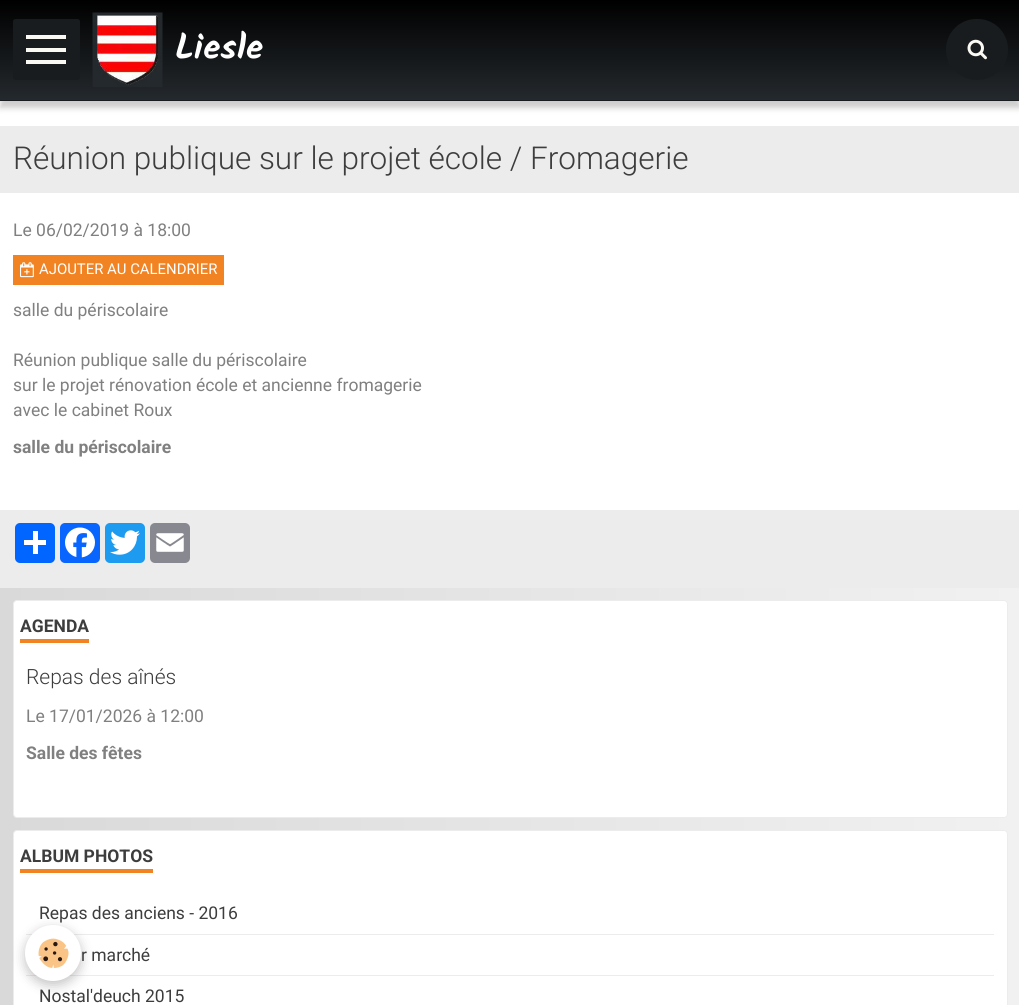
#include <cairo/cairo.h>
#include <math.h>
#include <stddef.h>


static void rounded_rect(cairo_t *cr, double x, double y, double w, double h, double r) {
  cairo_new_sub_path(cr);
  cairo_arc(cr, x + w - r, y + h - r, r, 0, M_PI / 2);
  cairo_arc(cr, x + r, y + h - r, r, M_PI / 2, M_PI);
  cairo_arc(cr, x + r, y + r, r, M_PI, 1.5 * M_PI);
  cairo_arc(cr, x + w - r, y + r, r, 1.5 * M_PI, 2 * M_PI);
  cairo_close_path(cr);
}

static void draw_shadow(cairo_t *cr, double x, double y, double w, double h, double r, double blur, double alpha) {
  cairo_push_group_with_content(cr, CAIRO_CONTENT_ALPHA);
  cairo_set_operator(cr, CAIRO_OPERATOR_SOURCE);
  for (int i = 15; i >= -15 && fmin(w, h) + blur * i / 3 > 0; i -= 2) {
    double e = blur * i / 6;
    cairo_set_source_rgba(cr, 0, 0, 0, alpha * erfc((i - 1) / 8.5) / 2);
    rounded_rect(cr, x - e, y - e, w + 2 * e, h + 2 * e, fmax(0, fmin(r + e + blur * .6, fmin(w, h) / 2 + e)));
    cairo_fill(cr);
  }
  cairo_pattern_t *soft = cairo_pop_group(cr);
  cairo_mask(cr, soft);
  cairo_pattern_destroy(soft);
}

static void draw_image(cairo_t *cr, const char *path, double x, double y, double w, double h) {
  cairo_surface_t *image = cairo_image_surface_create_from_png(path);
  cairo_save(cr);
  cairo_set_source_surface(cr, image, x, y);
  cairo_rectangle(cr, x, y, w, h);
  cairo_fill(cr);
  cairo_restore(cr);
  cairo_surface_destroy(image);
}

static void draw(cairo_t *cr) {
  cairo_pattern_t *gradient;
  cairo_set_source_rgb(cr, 1, 1, 1);
  cairo_paint(cr);
  cairo_set_source_rgb(cr, 0, 0, 0);
  draw_shadow(cr, 0, 6, 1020, 102, 0, 3, 0.2);
  cairo_set_source_rgb(cr, 25 / 255.0, 28 / 255.0, 31 / 255.0);
  cairo_rectangle(cr, 0, 100, 1019, 1);
  cairo_fill(cr);
  gradient = cairo_pattern_create_linear(510, 0, 510, 100);
  cairo_pattern_add_color_stop_rgba(gradient, 0, 0, 0, 0, 1);
  cairo_pattern_add_color_stop_rgba(gradient, 1, 36 / 255.0, 41 / 255.0, 45 / 255.0, 1);
  cairo_set_source(cr, gradient);
  cairo_pattern_destroy(gradient);
  cairo_rectangle(cr, 0, 0, 1019, 100);
  cairo_fill(cr);
  cairo_set_source_rgb(cr, 25 / 255.0, 28 / 255.0, 31 / 255.0);
  rounded_rect(cr, 13, 19, 67, 61, 2.5);
  cairo_fill(cr);
  cairo_set_source_rgb(cr, 250 / 255.0, 249 / 255.0, 243 / 255.0);
  cairo_rectangle(cr, 26, 48, 40, 4);
  cairo_fill(cr);
  cairo_rectangle(cr, 26, 35, 40, 4);
  cairo_fill(cr);
  cairo_rectangle(cr, 26, 60, 40, 4);
  cairo_fill(cr);
  draw_image(cr, "images/1.png", 92, 12, 71, 75);
  cairo_set_source_rgb(cr, 25 / 255.0, 28 / 255.0, 31 / 255.0);
  rounded_rect(cr, 946, 19, 62, 61, 30.5);
  cairo_fill(cr);
  draw_image(cr, "images/2.png", 967, 39, 20, 21);
  cairo_set_source_rgb(cr, 236 / 255.0, 236 / 255.0, 236 / 255.0);
  cairo_rectangle(cr, 0, 126, 1019, 67);
  cairo_fill(cr);
  cairo_set_source_rgb(cr, 242 / 255.0, 131 / 255.0, 34 / 255.0);
  cairo_rectangle(cr, 13, 255, 211, 30);
  cairo_fill(cr);
  draw_image(cr, "images/3.png", 20, 262, 14, 16);
  cairo_set_source_rgb(cr, 236 / 255.0, 236 / 255.0, 236 / 255.0);
  cairo_rectangle(cr, 0, 510, 1019, 78);
  cairo_fill(cr);
  cairo_set_source_rgb(cr, 1 / 255.0, 102 / 255.0, 1);
  rounded_rect(cr, 15, 523, 40, 40, 5);
  cairo_fill(cr);
  cairo_set_source_rgb(cr, 1, 1, 1);
  cairo_rectangle(cr, 33, 531, 5, 23);
  cairo_fill(cr);
  cairo_rectangle(cr, 24, 540, 22, 5);
  cairo_fill(cr);
  cairo_set_source_rgb(cr, 8 / 255.0, 102 / 255.0, 1);
  rounded_rect(cr, 60, 523, 40, 40, 5);
  cairo_fill(cr);
  draw_image(cr, "images/4.png", 65, 527, 30, 31);
  cairo_set_source_rgb(cr, 29 / 255.0, 155 / 255.0, 240 / 255.0);
  rounded_rect(cr, 105, 523, 40, 40, 5);
  cairo_fill(cr);
  draw_image(cr, "images/5.png", 110, 530, 30, 25);
  cairo_set_source_rgb(cr, 136 / 255.0, 137 / 255.0, 144 / 255.0);
  rounded_rect(cr, 150, 523, 40, 40, 5);
  cairo_fill(cr);
  draw_image(cr, "images/6.png", 156, 533, 28, 19);
  gradient = cairo_pattern_create_linear(0, 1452, 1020, 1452);
  cairo_pattern_add_color_stop_rgba(gradient, 0, 217 / 255.0, 217 / 255.0, 217 / 255.0, 1);
  cairo_pattern_add_color_stop_rgba(gradient, 1, 241 / 255.0, 241 / 255.0, 241 / 255.0, 1);
  cairo_set_source(cr, gradient);
  cairo_pattern_destroy(gradient);
  cairo_rectangle(cr, 0, 588, 1019, 417);
  cairo_fill(cr);
  cairo_set_source_rgb(cr, 1, 1, 1);
  rounded_rect(cr, 13.5, 600.5, 994, 217, 3.5);
  cairo_fill_preserve(cr);
  cairo_set_source_rgb(cr, 236 / 255.0, 236 / 255.0, 236 / 255.0);
  cairo_set_line_width(cr, 1);
  cairo_stroke(cr);
  cairo_set_source_rgb(cr, 242 / 255.0, 131 / 255.0, 34 / 255.0);
  cairo_rectangle(cr, 20, 639, 69, 4);
  cairo_fill(cr);
  cairo_set_source_rgb(cr, 1, 1, 1);
  rounded_rect(cr, 13.5, 830.5, 994, 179, 3.5);
  cairo_fill_preserve(cr);
  cairo_set_source_rgb(cr, 236 / 255.0, 236 / 255.0, 236 / 255.0);
  cairo_stroke(cr);
  cairo_set_source_rgb(cr, 242 / 255.0, 131 / 255.0, 34 / 255.0);
  cairo_rectangle(cr, 20, 869, 133, 4);
  cairo_fill(cr);
  cairo_set_source_rgb(cr, 236 / 255.0, 236 / 255.0, 236 / 255.0);
  cairo_rectangle(cr, 26, 934, 968, 1);
  cairo_fill(cr);
  cairo_rectangle(cr, 26, 975, 968, 1);
  cairo_fill(cr);
  cairo_set_source_rgb(cr, 0, 0, 0);
  draw_shadow(cr, 25, 929, 56, 56, 28, 6, 0.24);
  cairo_set_source_rgb(cr, 1, 1, 1);
  cairo_arc(cr, 53, 953, 28, 0, 2 * M_PI);
  cairo_fill(cr);
  draw_image(cr, "images/7.png", 38, 938, 31, 30);
  cairo_select_font_face(cr, "Kalam", CAIRO_FONT_SLANT_NORMAL, CAIRO_FONT_WEIGHT_BOLD);
  cairo_set_font_size(cr, 35);
  cairo_move_to(cr, 175, 59);
  cairo_show_text(cr, "Liesle");
  cairo_select_font_face(cr, "Roboto Light", CAIRO_FONT_SLANT_NORMAL, CAIRO_FONT_WEIGHT_NORMAL);
  cairo_set_font_size(cr, 31.5);
  cairo_set_source_rgb(cr, 61 / 255.0, 61 / 255.0, 61 / 255.0);
  cairo_move_to(cr, 13, 169);
  cairo_show_text(cr, "Réunion publique sur le projet école / Fromagerie");
  cairo_select_font_face(cr, "Roboto", CAIRO_FONT_SLANT_NORMAL, CAIRO_FONT_WEIGHT_NORMAL);
  cairo_set_font_size(cr, 17.5);
  cairo_set_source_rgb(cr, 128 / 255.0, 128 / 255.0, 128 / 255.0);
  cairo_move_to(cr, 13, 236);
  cairo_show_text(cr, "Le 06/02/2019 à 18:00");
  cairo_set_font_size(cr, 14.9);
  cairo_set_source_rgb(cr, 1, 1, 1);
  cairo_move_to(cr, 39, 274);
  cairo_show_text(cr, "AJOUTER AU CALENDRIER");
  cairo_set_font_size(cr, 17.5);
  cairo_set_source_rgb(cr, 128 / 255.0, 128 / 255.0, 128 / 255.0);
  cairo_move_to(cr, 13, 316);
  cairo_show_text(cr, "salle du périscolaire");
  cairo_move_to(cr, 13, 366);
  cairo_show_text(cr, "Réunion publique salle du périscolaire");
  cairo_move_to(cr, 13, 391);
  cairo_show_text(cr, "sur le projet rénovation école et ancienne fromagerie");
  cairo_move_to(cr, 13, 416);
  cairo_show_text(cr, "avec le cabinet Roux");
  cairo_select_font_face(cr, "Roboto", CAIRO_FONT_SLANT_NORMAL, CAIRO_FONT_WEIGHT_BOLD);
  cairo_move_to(cr, 13, 453);
  cairo_show_text(cr, "salle du périscolaire");
  cairo_set_source_rgb(cr, 61 / 255.0, 61 / 255.0, 61 / 255.0);
  cairo_move_to(cr, 20, 632);
  cairo_show_text(cr, "AGENDA");
  cairo_select_font_face(cr, "Roboto Light", CAIRO_FONT_SLANT_NORMAL, CAIRO_FONT_WEIGHT_NORMAL);
  cairo_set_font_size(cr, 21);
  cairo_move_to(cr, 26, 684);
  cairo_show_text(cr, "Repas des aînés");
  cairo_select_font_face(cr, "Roboto", CAIRO_FONT_SLANT_NORMAL, CAIRO_FONT_WEIGHT_NORMAL);
  cairo_set_font_size(cr, 17.5);
  cairo_set_source_rgb(cr, 128 / 255.0, 128 / 255.0, 128 / 255.0);
  cairo_move_to(cr, 26, 722);
  cairo_show_text(cr, "Le 17/01/2026 à 12:00");
  cairo_select_font_face(cr, "Roboto", CAIRO_FONT_SLANT_NORMAL, CAIRO_FONT_WEIGHT_BOLD);
  cairo_move_to(cr, 26, 759);
  cairo_show_text(cr, "Salle des fêtes");
  cairo_set_source_rgb(cr, 61 / 255.0, 61 / 255.0, 61 / 255.0);
  cairo_move_to(cr, 20, 862);
  cairo_show_text(cr, "ALBUM PHOTOS");
  cairo_select_font_face(cr, "Roboto", CAIRO_FONT_SLANT_NORMAL, CAIRO_FONT_WEIGHT_NORMAL);
  cairo_move_to(cr, 39, 919);
  cairo_show_text(cr, "Repas des anciens - 2016");
  cairo_move_to(cr, 81, 961);
  cairo_show_text(cr, "r marché");
  cairo_move_to(cr, 39, 1002);
  cairo_show_text(cr, "Nostal'deuch 2015");
}

int main(void) {
  cairo_surface_t *surface = cairo_image_surface_create(CAIRO_FORMAT_RGB24, 1019, 1005);
  cairo_t *cr = cairo_create(surface);
  cairo_font_options_t *options = cairo_font_options_create();
  cairo_font_options_set_hint_metrics(options, CAIRO_HINT_METRICS_OFF);
  cairo_font_options_set_hint_style(options, CAIRO_HINT_STYLE_NONE);
  cairo_set_font_options(cr, options);
  cairo_set_miter_limit(cr, 4);
  draw(cr);
  cairo_surface_write_to_png(surface, "out.png");
  cairo_font_options_destroy(options);
  cairo_destroy(cr);
  cairo_surface_destroy(surface);
  return 0;
}
